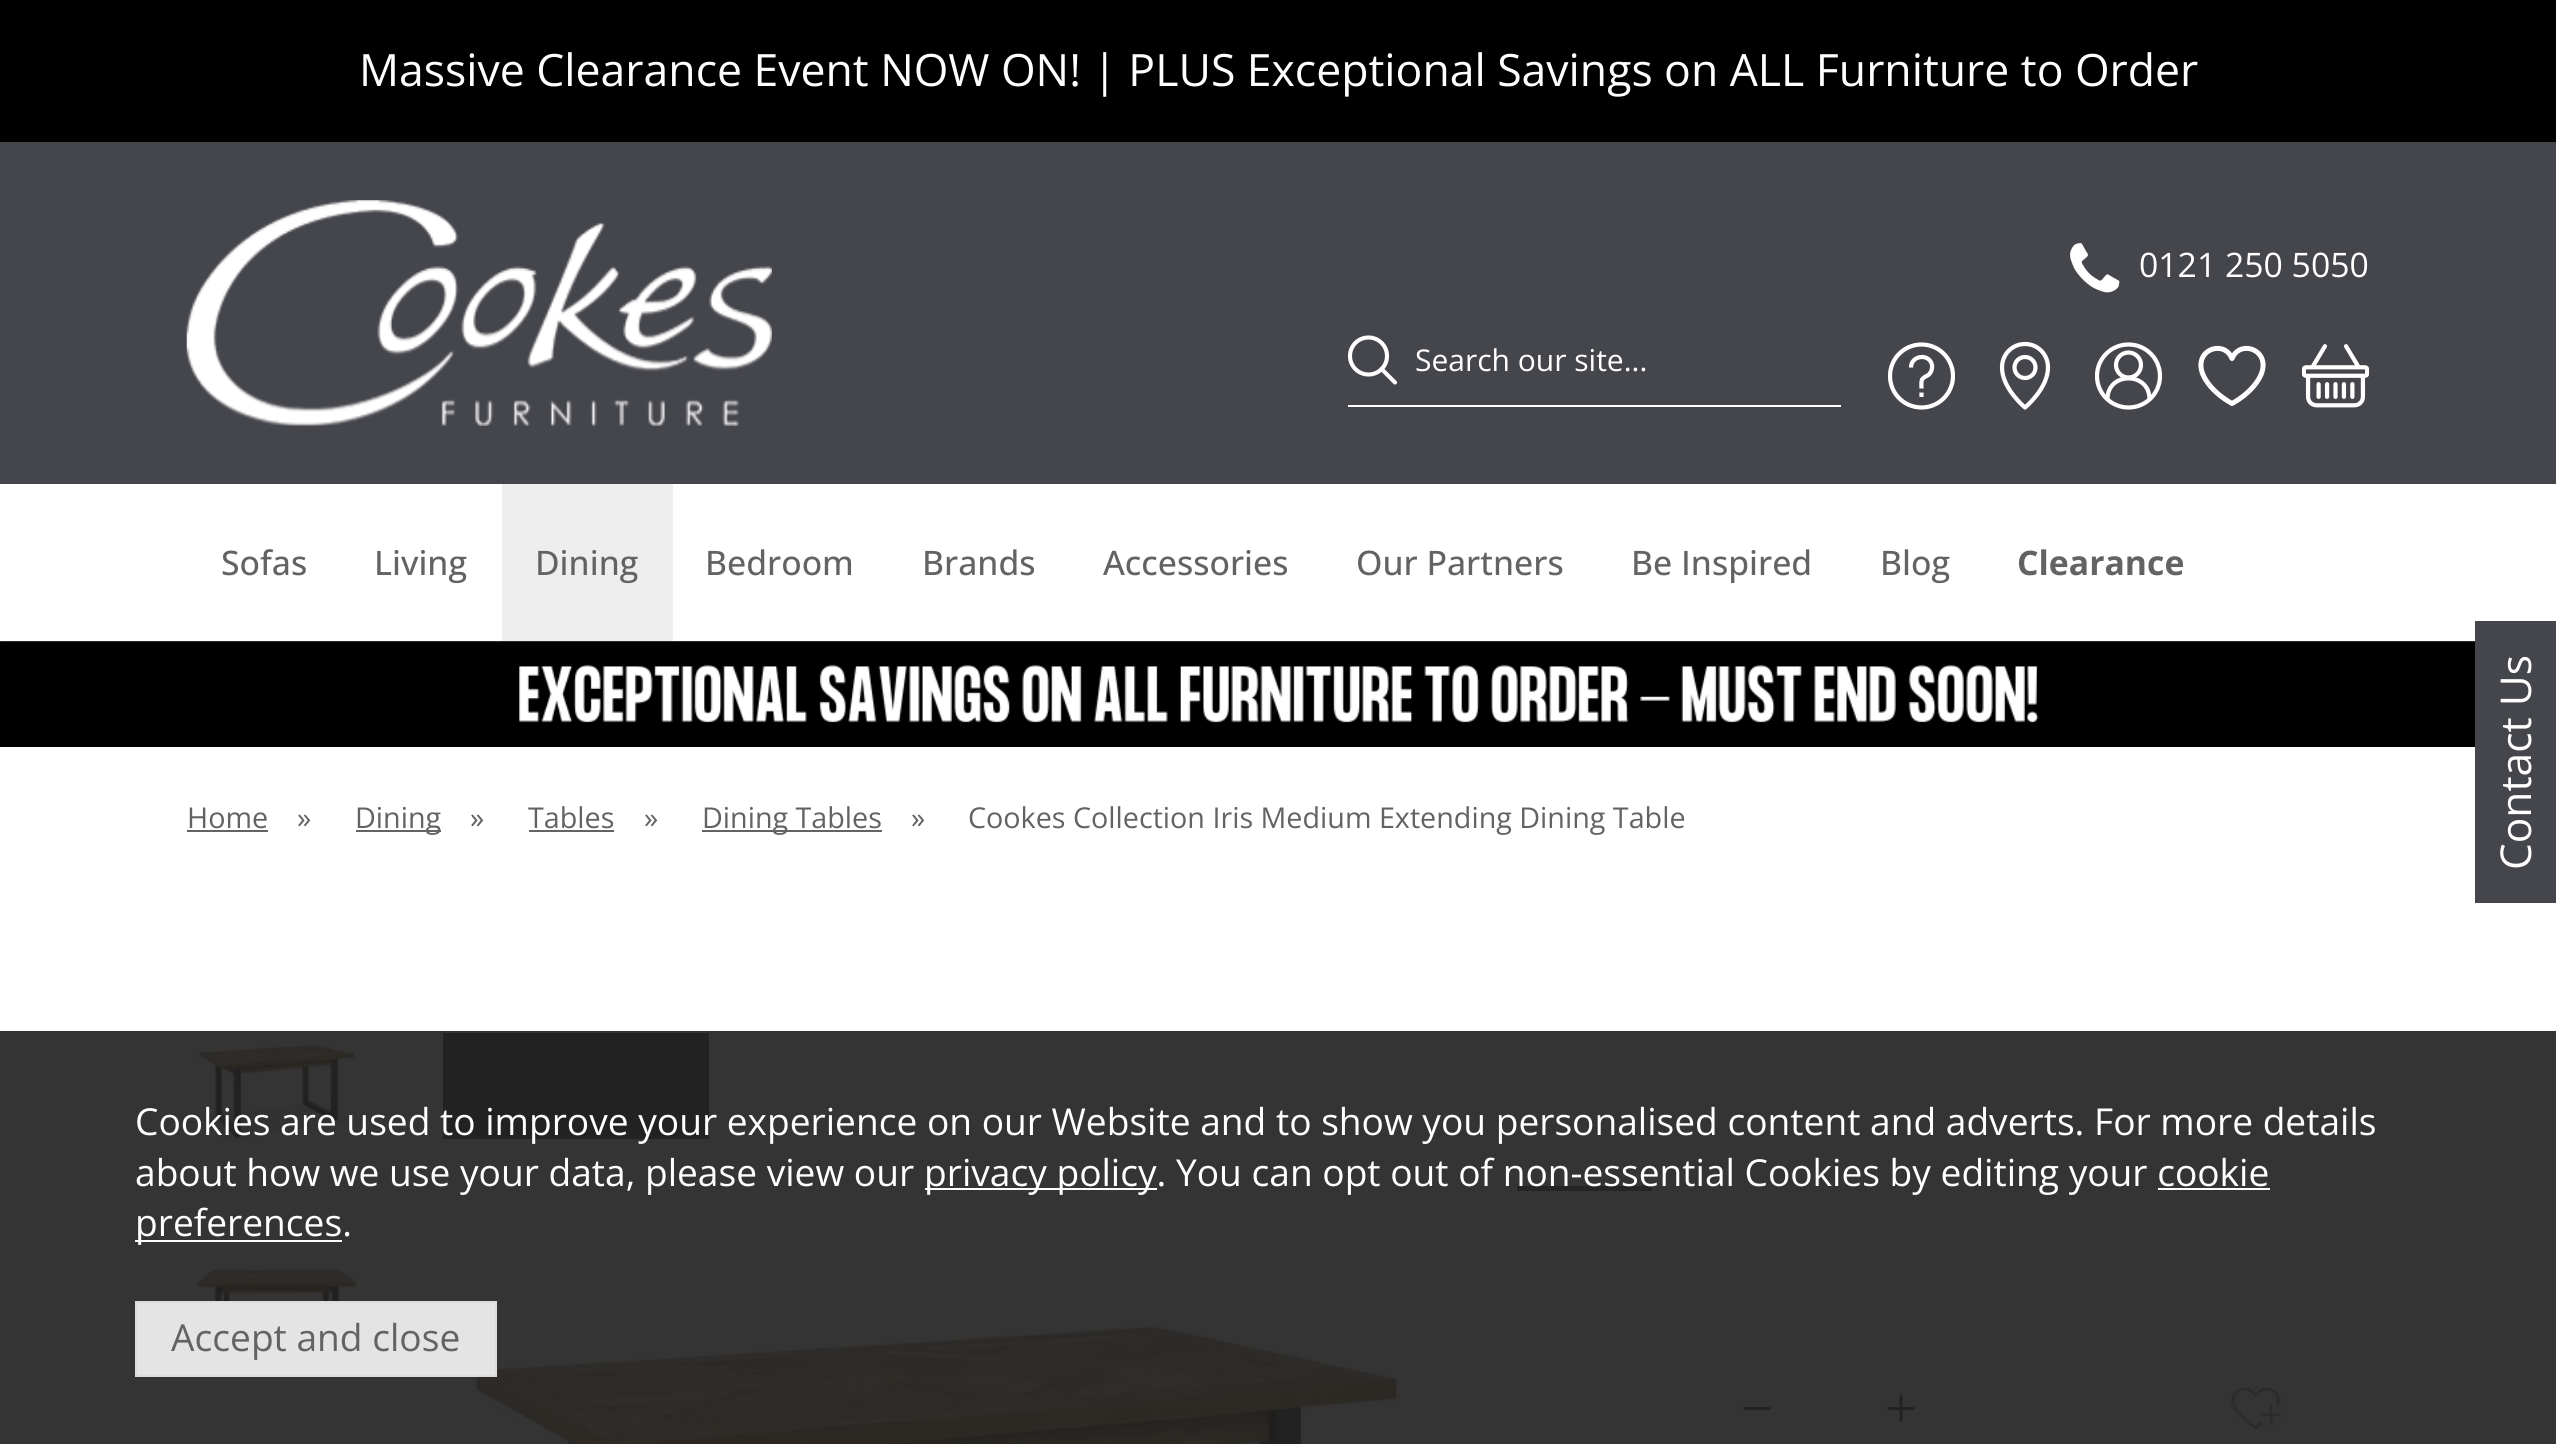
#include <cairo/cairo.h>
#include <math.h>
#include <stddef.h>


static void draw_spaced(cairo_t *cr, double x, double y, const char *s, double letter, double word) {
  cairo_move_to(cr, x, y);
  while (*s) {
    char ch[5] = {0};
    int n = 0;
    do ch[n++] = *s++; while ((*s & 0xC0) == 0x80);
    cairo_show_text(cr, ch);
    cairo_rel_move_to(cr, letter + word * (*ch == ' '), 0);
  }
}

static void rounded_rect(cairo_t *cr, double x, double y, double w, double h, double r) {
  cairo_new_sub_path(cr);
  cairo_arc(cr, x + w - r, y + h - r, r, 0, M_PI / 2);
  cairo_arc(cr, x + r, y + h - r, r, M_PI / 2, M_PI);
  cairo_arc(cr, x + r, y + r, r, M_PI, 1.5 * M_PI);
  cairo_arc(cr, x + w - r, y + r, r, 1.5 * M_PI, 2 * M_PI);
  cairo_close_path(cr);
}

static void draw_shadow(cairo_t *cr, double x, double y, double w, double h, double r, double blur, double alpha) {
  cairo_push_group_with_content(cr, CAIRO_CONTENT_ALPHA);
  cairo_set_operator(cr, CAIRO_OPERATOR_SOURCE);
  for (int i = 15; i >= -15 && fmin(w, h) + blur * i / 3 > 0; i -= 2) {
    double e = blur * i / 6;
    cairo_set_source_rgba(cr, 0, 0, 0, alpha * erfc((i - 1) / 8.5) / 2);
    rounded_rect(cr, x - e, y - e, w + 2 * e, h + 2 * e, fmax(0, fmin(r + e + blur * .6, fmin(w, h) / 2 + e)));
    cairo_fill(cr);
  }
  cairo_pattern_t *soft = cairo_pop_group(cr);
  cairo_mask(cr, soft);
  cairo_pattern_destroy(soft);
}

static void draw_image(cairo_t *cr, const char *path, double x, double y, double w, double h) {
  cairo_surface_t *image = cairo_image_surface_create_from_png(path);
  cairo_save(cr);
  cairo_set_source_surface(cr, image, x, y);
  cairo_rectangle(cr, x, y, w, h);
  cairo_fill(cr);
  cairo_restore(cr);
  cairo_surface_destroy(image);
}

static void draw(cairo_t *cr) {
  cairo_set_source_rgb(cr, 1, 1, 1);
  cairo_paint(cr);
  cairo_set_source_rgb(cr, 0, 0, 0);
  cairo_rectangle(cr, 0, 0, 2556, 142);
  cairo_fill(cr);
  cairo_set_source_rgb(cr, 69 / 255.0, 70 / 255.0, 76 / 255.0);
  cairo_rectangle(cr, 0, 142, 2556, 342);
  cairo_fill(cr);
  draw_image(cr, "images/1.png", 186, 200, 586, 226);
  draw_image(cr, "images/2.png", 2070, 243, 50, 50);
  cairo_save(cr);
  cairo_rectangle(cr, 1888, 342, 67, 68);
  cairo_clip(cr);
  cairo_arc(cr, 1921.5, 376, 31.5, 0, 2 * M_PI);
  cairo_set_source_rgb(cr, 1, 1, 1);
  cairo_set_line_width(cr, 4.2);
  cairo_stroke(cr);
  cairo_restore(cr);
  cairo_new_path(cr);
  cairo_move_to(cr, 1921.5, 392.5);
  cairo_line_to(cr, 1921.5, 397);
  cairo_move_to(cr, 1921.5, 388.5);
  cairo_curve_to(cr, 1921.5, 385.5, 1921, 382.5, 1922, 379.5);
  cairo_curve_to(cr, 1923.5, 377.5, 1925.5, 376.5, 1927.5, 375.5);
  cairo_curve_to(cr, 1931, 373.5, 1932.5, 369, 1932, 365);
  cairo_curve_to(cr, 1929.5, 353, 1911, 355, 1911, 367.5);
  cairo_set_source_rgb(cr, 1, 1, 1);
  cairo_set_line_width(cr, 4.2);
  cairo_set_line_join(cr, CAIRO_LINE_JOIN_ROUND);
  cairo_stroke(cr);
  cairo_new_path(cr);
  cairo_move_to(cr, 2048, 367.5);
  cairo_curve_to(cr, 2048, 354.5, 2038, 344, 2025, 344);
  cairo_curve_to(cr, 2012, 344, 2002, 354.5, 2002, 367.5);
  cairo_curve_to(cr, 2002, 388.5, 2025, 407.5, 2025, 407.5);
  cairo_curve_to(cr, 2025, 407.5, 2048, 388.5, 2048, 367.5);
  cairo_close_path(cr);
  cairo_set_line_cap(cr, CAIRO_LINE_CAP_ROUND);
  cairo_stroke(cr);
  cairo_arc(cr, 2025, 367.5, 10.5, 0, 2 * M_PI);
  cairo_set_line_cap(cr, CAIRO_LINE_CAP_BUTT);
  cairo_set_line_join(cr, CAIRO_LINE_JOIN_MITER);
  cairo_stroke(cr);
  cairo_save(cr);
  cairo_rectangle(cr, 2095, 342, 67, 68);
  cairo_clip(cr);
  cairo_arc(cr, 2128.5, 376, 31.5, 0, 2 * M_PI);
  cairo_stroke(cr);
  cairo_restore(cr);
  cairo_new_path(cr);
  cairo_move_to(cr, 2149.5, 399);
  cairo_curve_to(cr, 2149.5, 371.5, 2107.5, 371.5, 2107.5, 399);
  cairo_set_line_cap(cr, CAIRO_LINE_CAP_ROUND);
  cairo_set_line_join(cr, CAIRO_LINE_JOIN_ROUND);
  cairo_stroke(cr);
  cairo_arc(cr, 2128.5, 365, 12.5, 0, 2 * M_PI);
  cairo_set_line_cap(cr, CAIRO_LINE_CAP_BUTT);
  cairo_set_line_join(cr, CAIRO_LINE_JOIN_MITER);
  cairo_stroke(cr);
  cairo_new_path(cr);
  cairo_move_to(cr, 2232, 403.5);
  cairo_curve_to(cr, 2222, 398, 2211.5, 389.5, 2205.5, 379.5);
  cairo_curve_to(cr, 2188.5, 351.5, 2223.5, 337.5, 2232, 358.5);
  cairo_curve_to(cr, 2240.5, 337.5, 2275.5, 351.5, 2258.5, 379.5);
  cairo_curve_to(cr, 2252.5, 389.5, 2242, 398, 2232, 403.5);
  cairo_close_path(cr);
  cairo_set_line_width(cr, 5);
  cairo_set_line_cap(cr, CAIRO_LINE_CAP_ROUND);
  cairo_set_line_join(cr, CAIRO_LINE_JOIN_ROUND);
  cairo_stroke(cr);
  draw_image(cr, "images/3.png", 2302, 344, 67, 64);
  cairo_arc(cr, 1368.5, 356, 18.5, 0, 2 * M_PI);
  cairo_set_line_width(cr, 4.1);
  cairo_set_line_cap(cr, CAIRO_LINE_CAP_BUTT);
  cairo_set_line_join(cr, CAIRO_LINE_JOIN_MITER);
  cairo_stroke(cr);
  cairo_new_path(cr);
  cairo_move_to(cr, 1395, 382.5);
  cairo_line_to(cr, 1381.5, 369);
  cairo_set_line_cap(cr, CAIRO_LINE_CAP_ROUND);
  cairo_stroke(cr);
  cairo_rectangle(cr, 1348, 405, 493, 2);
  cairo_fill(cr);
  draw_image(cr, "images/4.png", 0, 641, 2475, 106);
  cairo_save(cr);
  cairo_set_fill_rule(cr, CAIRO_FILL_RULE_EVEN_ODD);
  cairo_new_path(cr);
  cairo_move_to(cr, 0, 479);
  cairo_line_to(cr, 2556, 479);
  cairo_line_to(cr, 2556, 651);
  cairo_line_to(cr, 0, 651);
  cairo_close_path(cr);
  cairo_move_to(cr, 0, 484);
  cairo_line_to(cr, 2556, 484);
  cairo_line_to(cr, 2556, 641);
  cairo_line_to(cr, 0, 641);
  cairo_close_path(cr);
  cairo_clip(cr);
  cairo_set_source_rgb(cr, 0, 0, 0);
  draw_shadow(cr, 0, 486, 2556, 158, 0, 2, 0.3);
  cairo_restore(cr);
  cairo_set_source_rgb(cr, 238 / 255.0, 238 / 255.0, 238 / 255.0);
  cairo_rectangle(cr, 502, 484, 171, 157);
  cairo_fill(cr);
  cairo_set_source_rgb(cr, 69 / 255.0, 70 / 255.0, 76 / 255.0);
  cairo_rectangle(cr, 2475, 621, 81, 282);
  cairo_fill(cr);
  cairo_set_source_rgb(cr, 99 / 255.0, 99 / 255.0, 99 / 255.0);
  cairo_rectangle(cr, 187, 830, 81, 2);
  cairo_fill(cr);
  cairo_rectangle(cr, 356, 830, 85, 2);
  cairo_fill(cr);
  cairo_rectangle(cr, 529, 830, 85, 2);
  cairo_fill(cr);
  cairo_rectangle(cr, 702, 830, 180, 2);
  cairo_fill(cr);
  draw_image(cr, "images/5.png", 198, 1040, 158, 102);
  draw_image(cr, "images/6.png", 190, 1264, 170, 37);
  cairo_set_source_rgb(cr, 69 / 255.0, 70 / 255.0, 76 / 255.0);
  cairo_rectangle(cr, 443, 1033, 266, 106);
  cairo_fill(cr);
  draw_image(cr, "images/7.png", 472, 1325, 926, 119);
  cairo_set_source_rgb(cr, 99 / 255.0, 99 / 255.0, 99 / 255.0);
  cairo_rectangle(cr, 1517, 1186, 135, 5);
  cairo_fill(cr);
  cairo_new_path(cr);
  cairo_move_to(cr, 1745, 1408.5);
  cairo_line_to(cr, 1769.5, 1408.5);
  cairo_set_source_rgb(cr, 58 / 255.0, 58 / 255.0, 58 / 255.0);
  cairo_set_line_width(cr, 2.7);
  cairo_set_line_join(cr, CAIRO_LINE_JOIN_ROUND);
  cairo_stroke(cr);
  cairo_new_path(cr);
  cairo_move_to(cr, 1901, 1396.5);
  cairo_line_to(cr, 1901, 1420.5);
  cairo_move_to(cr, 1889, 1408.5);
  cairo_line_to(cr, 1913.5, 1408.5);
  cairo_stroke(cr);
  draw_image(cr, "images/8.png", 2230, 1387, 53, 43);
  cairo_set_source_rgba(cr, 30 / 255.0, 30 / 255.0, 30 / 255.0, 0.9);
  cairo_rectangle(cr, 0, 1031, 2556, 413);
  cairo_fill(cr);
  cairo_set_source_rgb(cr, 1, 1, 1);
  cairo_rectangle(cr, 925, 1188, 232, 2);
  cairo_fill(cr);
  cairo_rectangle(cr, 2158, 1188, 112, 2);
  cairo_fill(cr);
  cairo_rectangle(cr, 135, 1240, 207, 2);
  cairo_fill(cr);
  cairo_set_source_rgb(cr, 228 / 255.0, 228 / 255.0, 228 / 255.0);
  cairo_rectangle(cr, 136, 1302, 360, 74);
  cairo_fill_preserve(cr);
  cairo_set_source_rgb(cr, 221 / 255.0, 221 / 255.0, 221 / 255.0);
  cairo_set_line_width(cr, 2);
  cairo_set_line_cap(cr, CAIRO_LINE_CAP_BUTT);
  cairo_set_line_join(cr, CAIRO_LINE_JOIN_MITER);
  cairo_stroke(cr);
  cairo_select_font_face(cr, "Open Sans", CAIRO_FONT_SLANT_NORMAL, CAIRO_FONT_WEIGHT_NORMAL);
  cairo_set_font_size(cr, 44.55);
  cairo_set_source_rgb(cr, 1, 1, 1);
  draw_spaced(cr, 359, 86, "Massive Clearance Event NOW ON! | PLUS Exceptional Savings on ALL Furniture to Order", 0, -0.1);
  cairo_set_font_size(cr, 33.75);
  cairo_move_to(cr, 2139, 277);
  cairo_show_text(cr, "0121 250 5050");
  cairo_set_font_size(cr, 30);
  cairo_move_to(cr, 1415, 371);
  cairo_show_text(cr, "Search our site...");
  cairo_select_font_face(cr, "Open Sans Medium", CAIRO_FONT_SLANT_NORMAL, CAIRO_FONT_WEIGHT_NORMAL);
  cairo_set_font_size(cr, 33.75);
  cairo_set_source_rgb(cr, 99 / 255.0, 99 / 255.0, 99 / 255.0);
  cairo_move_to(cr, 221, 575);
  cairo_show_text(cr, "Sofas");
  cairo_move_to(cr, 374, 575);
  cairo_show_text(cr, "Living");
  cairo_move_to(cr, 535, 575);
  cairo_show_text(cr, "Dining");
  cairo_move_to(cr, 705, 575);
  cairo_show_text(cr, "Bedroom");
  cairo_move_to(cr, 922, 575);
  cairo_show_text(cr, "Brands");
  cairo_move_to(cr, 1103, 575);
  cairo_show_text(cr, "Accessories");
  cairo_move_to(cr, 1356, 575);
  cairo_show_text(cr, "Our Partners");
  cairo_move_to(cr, 1631, 575);
  cairo_show_text(cr, "Be Inspired");
  cairo_move_to(cr, 1880, 575);
  cairo_show_text(cr, "Blog");
  cairo_select_font_face(cr, "Open Sans", CAIRO_FONT_SLANT_NORMAL, CAIRO_FONT_WEIGHT_BOLD);
  cairo_move_to(cr, 2017, 575);
  cairo_show_text(cr, "Clearance");
  cairo_select_font_face(cr, "Open Sans", CAIRO_FONT_SLANT_NORMAL, CAIRO_FONT_WEIGHT_NORMAL);
  cairo_set_font_size(cr, 42.5);
  cairo_set_source_rgb(cr, 1, 1, 1);
  cairo_save(cr);
  cairo_translate(cr, 2531, 870);
  cairo_rotate(cr, -90 * M_PI / 180);
  cairo_move_to(cr, 0, 0);
  cairo_show_text(cr, "Contact Us");
  cairo_restore(cr);
  cairo_set_font_size(cr, 28.7);
  cairo_set_source_rgb(cr, 99 / 255.0, 99 / 255.0, 99 / 255.0);
  cairo_move_to(cr, 187, 828);
  cairo_show_text(cr, "Home");
  cairo_move_to(cr, 297, 828);
  cairo_show_text(cr, "»");
  cairo_move_to(cr, 355, 828);
  cairo_show_text(cr, "Dining");
  cairo_move_to(cr, 470, 828);
  cairo_show_text(cr, "»");
  cairo_move_to(cr, 528, 828);
  cairo_show_text(cr, "Tables");
  cairo_move_to(cr, 644, 828);
  cairo_show_text(cr, "»");
  cairo_move_to(cr, 702, 828);
  cairo_show_text(cr, "Dining Tables");
  cairo_move_to(cr, 911, 828);
  cairo_show_text(cr, "»");
  cairo_move_to(cr, 968, 828);
  cairo_show_text(cr, "Cookes Collection Iris Medium Extending Dining Table");
  cairo_set_font_size(cr, 37.12);
  cairo_set_source_rgb(cr, 1, 1, 1);
  cairo_move_to(cr, 135, 1135);
  cairo_show_text(cr, "Cookies are used to improve your experience on our Website and to show you personalised content and adverts. For more details");
  cairo_move_to(cr, 135, 1186);
  cairo_show_text(cr, "about how we use your data, please view our");
  cairo_move_to(cr, 924, 1186);
  cairo_show_text(cr, "privacy policy. You can opt out of non-essential Cookies by editing your cookie");
  cairo_move_to(cr, 135, 1236);
  cairo_show_text(cr, "preferences.");
  cairo_set_source_rgb(cr, 99 / 255.0, 99 / 255.0, 99 / 255.0);
  cairo_move_to(cr, 171, 1351);
  cairo_show_text(cr, "Accept and close");
}

int main(void) {
  cairo_surface_t *surface = cairo_image_surface_create(CAIRO_FORMAT_RGB24, 2556, 1444);
  cairo_t *cr = cairo_create(surface);
  cairo_font_options_t *options = cairo_font_options_create();
  cairo_font_options_set_hint_metrics(options, CAIRO_HINT_METRICS_OFF);
  cairo_font_options_set_hint_style(options, CAIRO_HINT_STYLE_NONE);
  cairo_set_font_options(cr, options);
  cairo_set_miter_limit(cr, 4);
  draw(cr);
  cairo_surface_write_to_png(surface, "out.png");
  cairo_font_options_destroy(options);
  cairo_destroy(cr);
  cairo_surface_destroy(surface);
  return 0;
}
